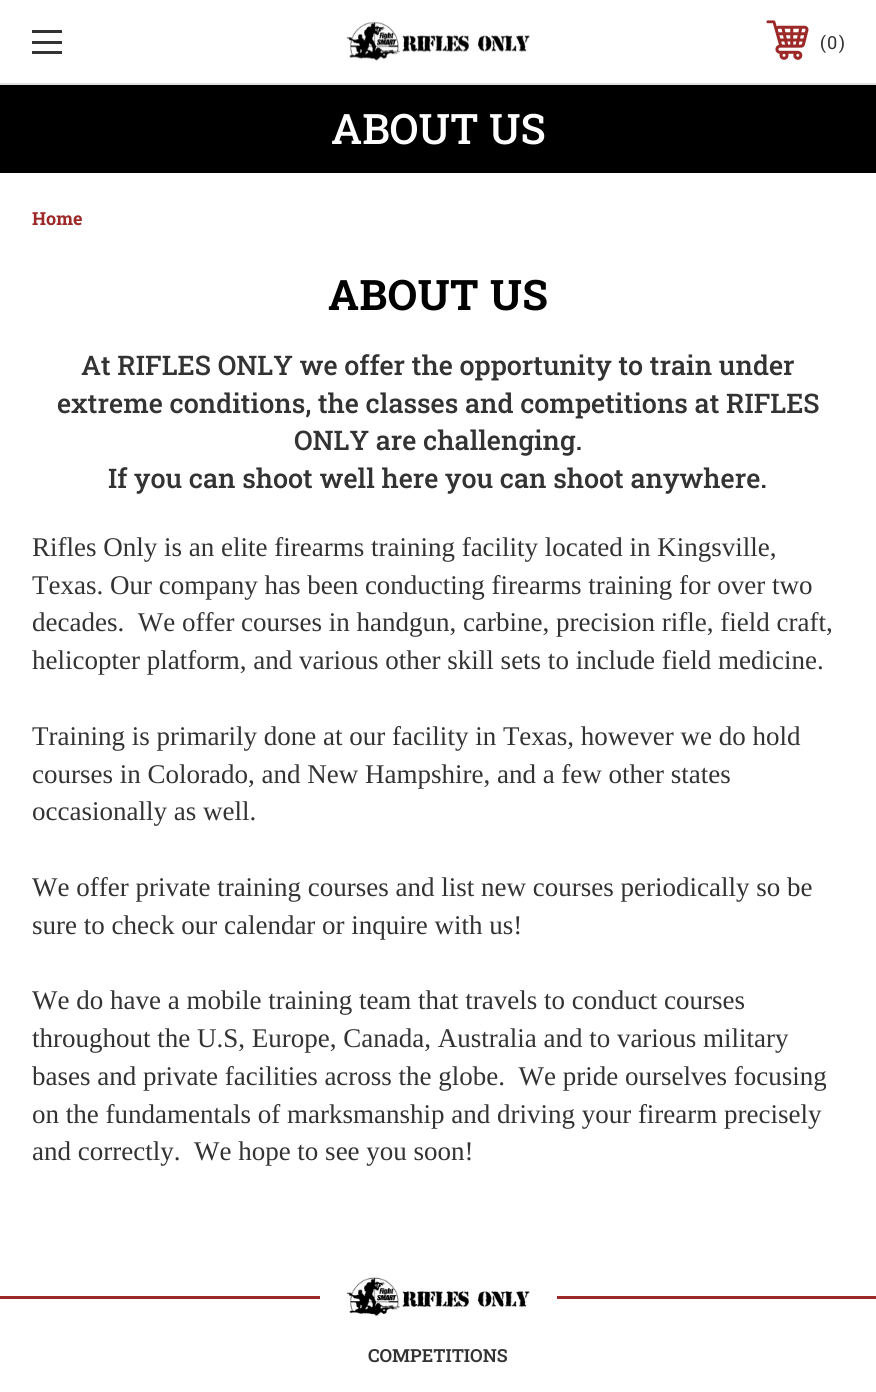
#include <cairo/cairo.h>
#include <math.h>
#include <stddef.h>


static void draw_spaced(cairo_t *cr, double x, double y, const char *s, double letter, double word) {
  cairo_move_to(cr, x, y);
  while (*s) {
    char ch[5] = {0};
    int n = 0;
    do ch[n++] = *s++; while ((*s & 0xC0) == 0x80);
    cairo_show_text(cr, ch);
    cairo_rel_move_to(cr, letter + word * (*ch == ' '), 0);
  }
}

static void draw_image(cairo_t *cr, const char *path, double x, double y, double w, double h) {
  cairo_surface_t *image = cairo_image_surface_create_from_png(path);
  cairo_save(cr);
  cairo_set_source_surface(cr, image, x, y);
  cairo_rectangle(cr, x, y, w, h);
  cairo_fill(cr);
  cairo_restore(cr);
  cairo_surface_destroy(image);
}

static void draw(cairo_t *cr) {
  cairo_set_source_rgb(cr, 1, 1, 1);
  cairo_paint(cr);
  cairo_set_source_rgb(cr, 225 / 255.0, 225 / 255.0, 225 / 255.0);
  cairo_rectangle(cr, 0, 83, 876, 2);
  cairo_fill(cr);
  cairo_set_source_rgb(cr, 51 / 255.0, 51 / 255.0, 51 / 255.0);
  cairo_rectangle(cr, 32, 41, 30, 3);
  cairo_fill(cr);
  cairo_rectangle(cr, 32, 30, 30, 3);
  cairo_fill(cr);
  cairo_rectangle(cr, 32, 51, 30, 3);
  cairo_fill(cr);
  draw_image(cr, "images/1.png", 346, 21, 184, 40);
  draw_image(cr, "images/2.png", 766, 20, 43, 40);
  cairo_set_source_rgb(cr, 0, 0, 0);
  cairo_rectangle(cr, 0, 85, 876, 88);
  cairo_fill(cr);
  cairo_set_source_rgb(cr, 156 / 255.0, 40 / 255.0, 40 / 255.0);
  cairo_rectangle(cr, 0, 1296, 876, 3);
  cairo_fill(cr);
  cairo_set_source_rgb(cr, 1, 1, 1);
  cairo_rectangle(cr, 320, 1296, 237, 3);
  cairo_fill(cr);
  draw_image(cr, "images/3.png", 346, 1277, 184, 40);
  cairo_select_font_face(cr, "Roboto Slab", CAIRO_FONT_SLANT_NORMAL, CAIRO_FONT_WEIGHT_NORMAL);
  cairo_set_font_size(cr, 18);
  cairo_set_source_rgb(cr, 51 / 255.0, 51 / 255.0, 51 / 255.0);
  cairo_move_to(cr, 820, 49);
  cairo_show_text(cr, "(");
  cairo_move_to(cr, 827, 49);
  cairo_show_text(cr, "0");
  cairo_move_to(cr, 839, 49);
  cairo_show_text(cr, ")");
  cairo_select_font_face(cr, "Roboto Slab Medium", CAIRO_FONT_SLANT_NORMAL, CAIRO_FONT_WEIGHT_NORMAL);
  cairo_set_font_size(cr, 42);
  cairo_set_source_rgb(cr, 1, 1, 1);
  cairo_move_to(cr, 331, 144);
  cairo_show_text(cr, "ABOUT US");
  cairo_select_font_face(cr, "Roboto Slab", CAIRO_FONT_SLANT_NORMAL, CAIRO_FONT_WEIGHT_BOLD);
  cairo_set_font_size(cr, 18);
  cairo_set_source_rgb(cr, 156 / 255.0, 40 / 255.0, 40 / 255.0);
  cairo_move_to(cr, 32, 225);
  cairo_show_text(cr, "Home");
  cairo_set_font_size(cr, 42);
  cairo_set_source_rgb(cr, 1 / 255.0, 1 / 255.0, 1 / 255.0);
  draw_spaced(cr, 328, 310, "ABOUT US", 0.5, 0);
  cairo_select_font_face(cr, "Roboto Slab Medium", CAIRO_FONT_SLANT_NORMAL, CAIRO_FONT_WEIGHT_NORMAL);
  cairo_set_font_size(cr, 27);
  cairo_set_source_rgb(cr, 51 / 255.0, 51 / 255.0, 51 / 255.0);
  cairo_move_to(cr, 81, 375);
  cairo_show_text(cr, "At RIFLES ONLY we offer the opportunity to train under");
  cairo_move_to(cr, 57, 413);
  cairo_show_text(cr, "extreme conditions, the classes and competitions at RIFLES");
  cairo_move_to(cr, 294, 450);
  cairo_show_text(cr, "ONLY are challenging.");
  cairo_move_to(cr, 108, 488);
  cairo_show_text(cr, "If you can shoot well here you can shoot anywhere.");
  cairo_select_font_face(cr, "Liberation Serif", CAIRO_FONT_SLANT_NORMAL, CAIRO_FONT_WEIGHT_NORMAL);
  cairo_move_to(cr, 32, 556);
  cairo_show_text(cr, "Rifles Only is an elite firearms training facility located in Kingsville,");
  cairo_move_to(cr, 32, 594);
  cairo_show_text(cr, "Texas. Our company has been conducting firearms training for over two");
  cairo_move_to(cr, 32, 631);
  cairo_show_text(cr, "decades.  We offer courses in handgun, carbine, precision rifle, field craft,");
  cairo_move_to(cr, 32, 669);
  cairo_show_text(cr, "helicopter platform, and various other skill sets to include field medicine.");
  cairo_move_to(cr, 32, 745);
  cairo_show_text(cr, "Training is primarily done at our facility in Texas, however we do hold");
  cairo_move_to(cr, 32, 783);
  cairo_show_text(cr, "courses in Colorado, and New Hampshire, and a few other states");
  cairo_move_to(cr, 32, 820);
  cairo_show_text(cr, "occasionally as well.");
  cairo_move_to(cr, 32, 896);
  cairo_show_text(cr, "We offer private training courses and list new courses periodically so be");
  cairo_move_to(cr, 32, 934);
  cairo_show_text(cr, "sure to check our calendar or inquire with us!");
  cairo_move_to(cr, 32, 1009);
  cairo_show_text(cr, "We do have a mobile training team that travels to conduct courses");
  cairo_move_to(cr, 32, 1047);
  cairo_show_text(cr, "throughout the U.S, Europe, Canada, Australia and to various military");
  cairo_move_to(cr, 32, 1085);
  cairo_show_text(cr, "bases and private facilities across the globe.  We pride ourselves focusing");
  cairo_move_to(cr, 32, 1123);
  cairo_show_text(cr, "on the fundamentals of marksmanship and driving your firearm precisely");
  cairo_move_to(cr, 32, 1160);
  cairo_show_text(cr, "and correctly.  We hope to see you soon!");
  cairo_select_font_face(cr, "Roboto Slab SemiBold", CAIRO_FONT_SLANT_NORMAL, CAIRO_FONT_WEIGHT_NORMAL);
  cairo_set_font_size(cr, 18);
  cairo_move_to(cr, 368, 1362);
  cairo_show_text(cr, "COMPETITIONS");
}

int main(void) {
  cairo_surface_t *surface = cairo_image_surface_create(CAIRO_FORMAT_RGB24, 876, 1392);
  cairo_t *cr = cairo_create(surface);
  cairo_font_options_t *options = cairo_font_options_create();
  cairo_font_options_set_hint_metrics(options, CAIRO_HINT_METRICS_OFF);
  cairo_font_options_set_hint_style(options, CAIRO_HINT_STYLE_NONE);
  cairo_set_font_options(cr, options);
  cairo_set_miter_limit(cr, 4);
  draw(cr);
  cairo_surface_write_to_png(surface, "out.png");
  cairo_font_options_destroy(options);
  cairo_destroy(cr);
  cairo_surface_destroy(surface);
  return 0;
}
